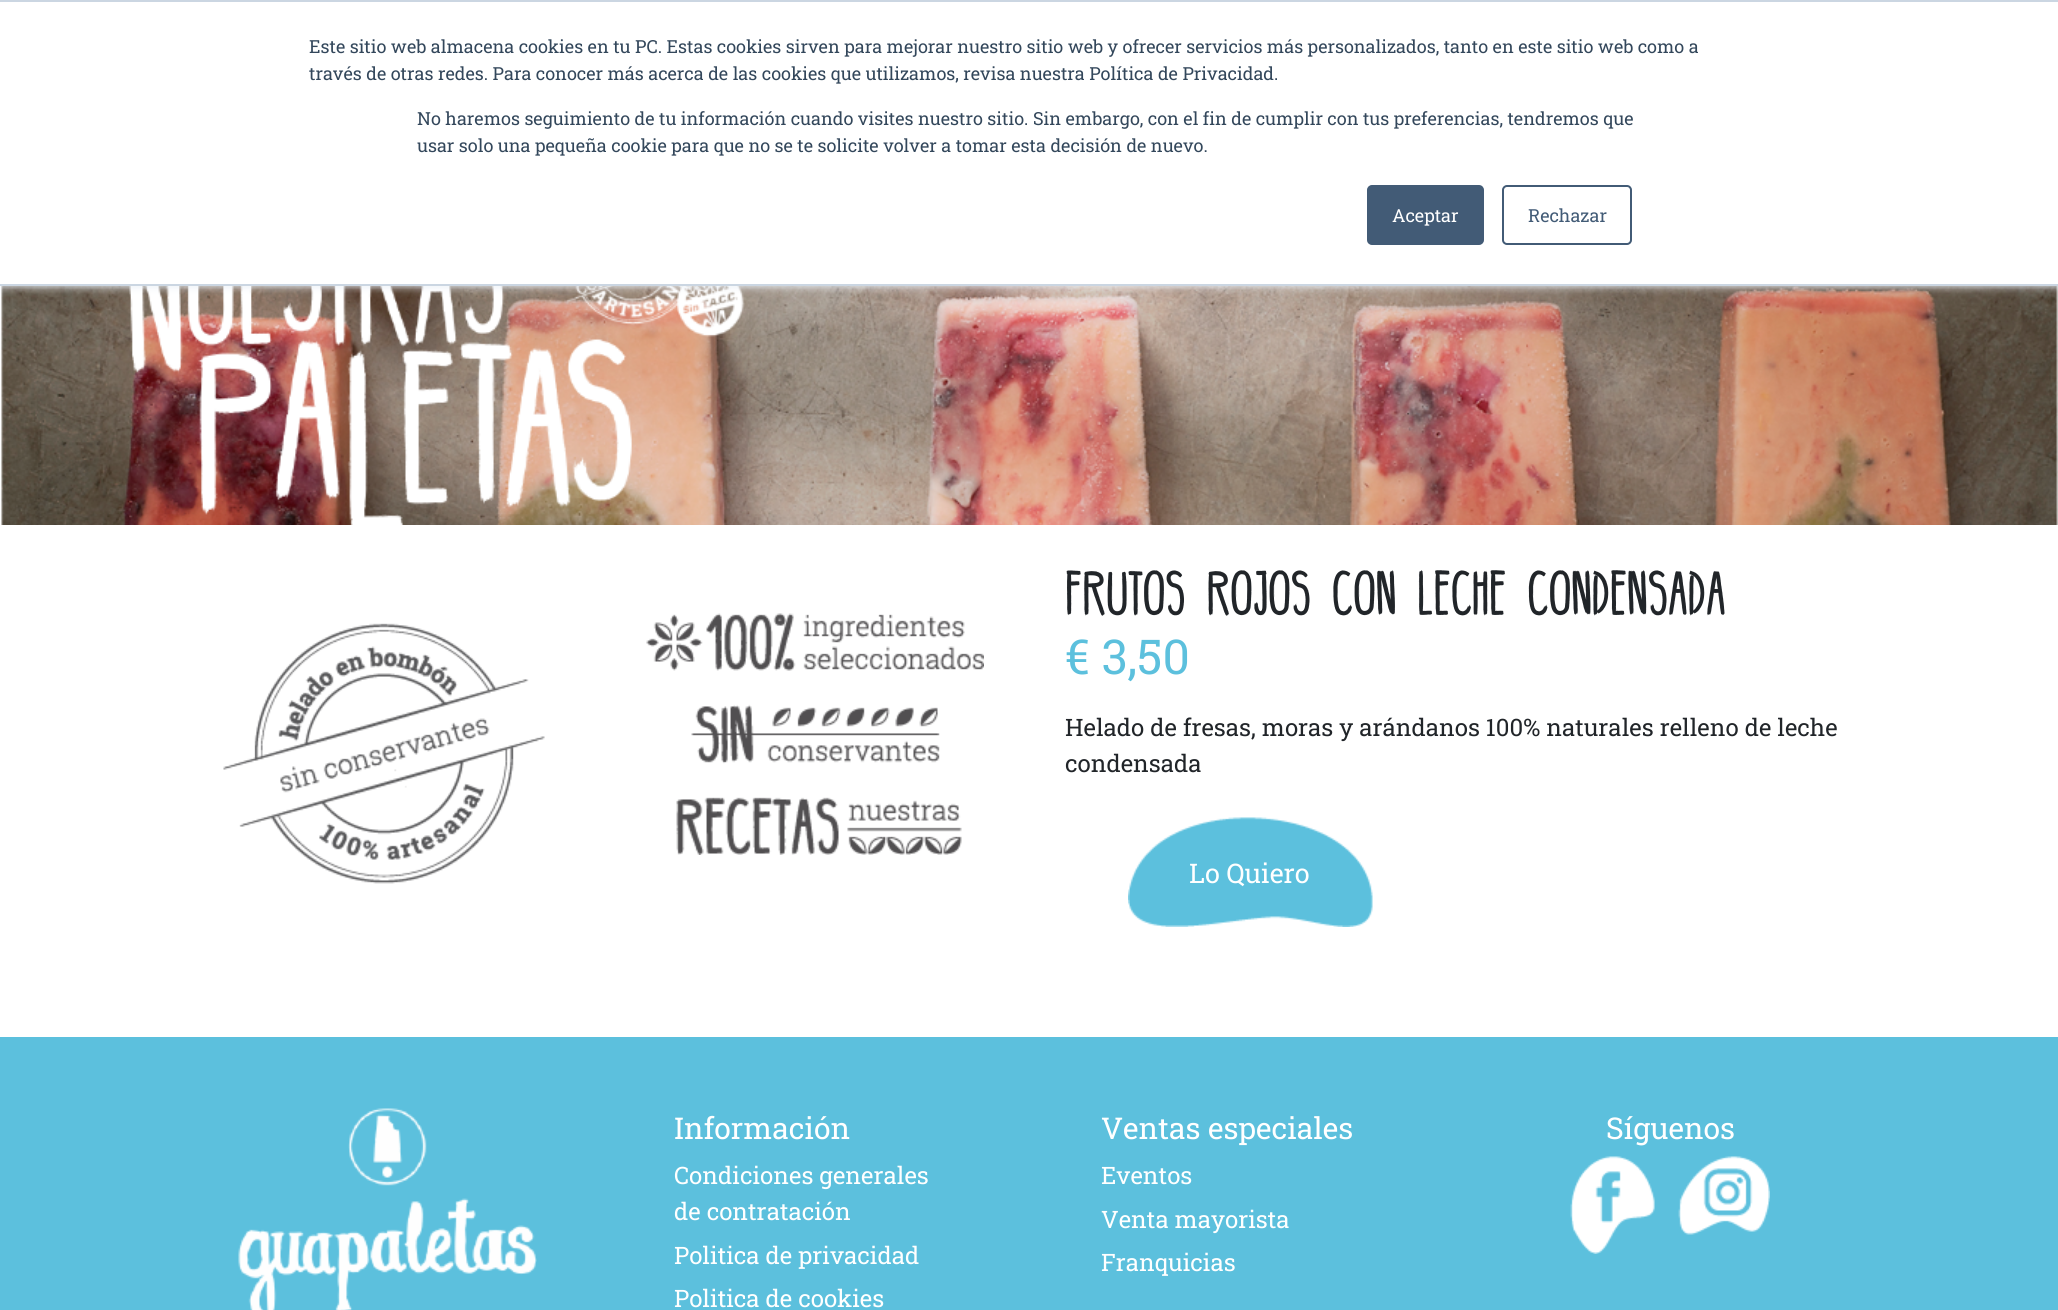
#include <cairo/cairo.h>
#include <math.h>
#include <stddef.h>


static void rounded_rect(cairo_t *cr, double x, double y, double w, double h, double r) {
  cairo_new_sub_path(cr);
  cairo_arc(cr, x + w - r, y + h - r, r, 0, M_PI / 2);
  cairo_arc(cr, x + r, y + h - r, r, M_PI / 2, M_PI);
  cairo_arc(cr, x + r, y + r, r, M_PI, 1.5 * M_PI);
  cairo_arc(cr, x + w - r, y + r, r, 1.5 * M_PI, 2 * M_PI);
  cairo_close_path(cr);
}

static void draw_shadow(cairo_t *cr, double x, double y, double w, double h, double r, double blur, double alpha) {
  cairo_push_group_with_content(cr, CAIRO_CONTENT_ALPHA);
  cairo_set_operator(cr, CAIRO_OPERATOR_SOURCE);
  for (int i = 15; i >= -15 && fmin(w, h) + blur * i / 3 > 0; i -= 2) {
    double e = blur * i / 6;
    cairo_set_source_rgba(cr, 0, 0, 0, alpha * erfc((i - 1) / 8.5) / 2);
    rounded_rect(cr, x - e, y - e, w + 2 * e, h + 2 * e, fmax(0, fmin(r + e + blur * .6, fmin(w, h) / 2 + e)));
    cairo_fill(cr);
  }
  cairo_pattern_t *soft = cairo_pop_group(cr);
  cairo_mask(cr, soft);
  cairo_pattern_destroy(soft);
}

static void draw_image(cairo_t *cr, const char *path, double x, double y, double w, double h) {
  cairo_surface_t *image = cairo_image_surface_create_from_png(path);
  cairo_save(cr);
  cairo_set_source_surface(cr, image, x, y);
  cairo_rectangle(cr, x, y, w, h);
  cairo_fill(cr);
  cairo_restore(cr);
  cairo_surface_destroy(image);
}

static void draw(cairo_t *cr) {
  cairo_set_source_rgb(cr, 1, 1, 1);
  cairo_paint(cr);
  draw_image(cr, "images/1.png", 1, 286, 2057, 239);
  cairo_set_source_rgb(cr, 234 / 255.0, 240 / 255.0, 246 / 255.0);
  draw_shadow(cr, 0, 2, 2058, 285, 0, 4, 1);
  cairo_set_source_rgb(cr, 1, 1, 1);
  cairo_rectangle(cr, 0, 2, 2058, 282);
  cairo_fill(cr);
  cairo_set_source_rgb(cr, 203 / 255.0, 214 / 255.0, 226 / 255.0);
  cairo_rectangle(cr, 0, 0, 2058, 2);
  cairo_fill(cr);
  cairo_rectangle(cr, 0, 284, 2058, 2);
  cairo_fill(cr);
  cairo_set_source_rgb(cr, 66 / 255.0, 91 / 255.0, 118 / 255.0);
  rounded_rect(cr, 1368, 186, 115, 58, 4);
  cairo_fill_preserve(cr);
  cairo_stroke(cr);
  rounded_rect(cr, 1503, 186, 128, 58, 4);
  cairo_stroke(cr);
  draw_image(cr, "images/2.png", 223, 623, 322, 261);
  draw_image(cr, "images/3.png", 646, 613, 338, 242);
  draw_image(cr, "images/4.png", 1128, 817, 245, 110);
  cairo_set_source_rgb(cr, 92 / 255.0, 192 / 255.0, 221 / 255.0);
  cairo_rectangle(cr, 0, 1037, 2058, 273);
  cairo_fill(cr);
  draw_image(cr, "images/5.png", 238, 1108, 299, 202);
  draw_image(cr, "images/6.png", 1570, 1156, 85, 98);
  draw_image(cr, "images/7.png", 1678, 1156, 92, 79);
  cairo_select_font_face(cr, "Roboto Slab", CAIRO_FONT_SLANT_NORMAL, CAIRO_FONT_WEIGHT_NORMAL);
  cairo_set_font_size(cr, 18);
  cairo_set_source_rgb(cr, 51 / 255.0, 71 / 255.0, 91 / 255.0);
  cairo_move_to(cr, 309, 53);
  cairo_show_text(cr, "Este sitio web almacena cookies en tu PC. Estas cookies sirven para mejorar nuestro sitio web y ofrecer servicios más personalizados, tanto en este sitio web como a");
  cairo_move_to(cr, 309, 80);
  cairo_show_text(cr, "través de otras redes. Para conocer más acerca de las cookies que utilizamos, revisa nuestra Política de Privacidad.");
  cairo_move_to(cr, 417, 125);
  cairo_show_text(cr, "No haremos seguimiento de tu información cuando visites nuestro sitio. Sin embargo, con el fin de cumplir con tus preferencias, tendremos que");
  cairo_move_to(cr, 417, 152);
  cairo_show_text(cr, "usar solo una pequeña cookie para que no se te solicite volver a tomar esta decisión de nuevo.");
  cairo_set_source_rgb(cr, 1, 1, 1);
  cairo_move_to(cr, 1392, 222);
  cairo_show_text(cr, "Aceptar");
  cairo_set_source_rgb(cr, 66 / 255.0, 91 / 255.0, 118 / 255.0);
  cairo_move_to(cr, 1528, 222);
  cairo_show_text(cr, "Rechazar");
  cairo_select_font_face(cr, "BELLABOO", CAIRO_FONT_SLANT_NORMAL, CAIRO_FONT_WEIGHT_NORMAL);
  cairo_set_font_size(cr, 45);
  cairo_set_source_rgb(cr, 33 / 255.0, 37 / 255.0, 41 / 255.0);
  cairo_move_to(cr, 1065, 606);
  cairo_show_text(cr, "Frutos Rojos con Leche Condensada");
  cairo_select_font_face(cr, "Roboto Slab", CAIRO_FONT_SLANT_NORMAL, CAIRO_FONT_WEIGHT_NORMAL);
  cairo_set_font_size(cr, 48);
  cairo_set_source_rgb(cr, 92 / 255.0, 192 / 255.0, 221 / 255.0);
  cairo_move_to(cr, 1065, 674);
  cairo_show_text(cr, "€ 3,50");
  cairo_set_font_size(cr, 24);
  cairo_set_source_rgb(cr, 33 / 255.0, 37 / 255.0, 41 / 255.0);
  cairo_move_to(cr, 1065, 736);
  cairo_show_text(cr, "Helado de fresas, moras y arándanos 100% naturales relleno de leche");
  cairo_move_to(cr, 1065, 772);
  cairo_show_text(cr, "condensada");
  cairo_set_font_size(cr, 27);
  cairo_set_source_rgb(cr, 1, 1, 1);
  cairo_move_to(cr, 1189, 883);
  cairo_show_text(cr, "Lo Quiero");
  cairo_set_font_size(cr, 30);
  cairo_move_to(cr, 674, 1139);
  cairo_show_text(cr, "Información");
  cairo_set_font_size(cr, 24);
  cairo_move_to(cr, 674, 1184);
  cairo_show_text(cr, "Condiciones generales");
  cairo_move_to(cr, 674, 1220);
  cairo_show_text(cr, "de contratación");
  cairo_move_to(cr, 674, 1264);
  cairo_show_text(cr, "Politica de privacidad");
  cairo_move_to(cr, 674, 1307);
  cairo_show_text(cr, "Politica de cookies");
  cairo_set_font_size(cr, 30);
  cairo_move_to(cr, 1101, 1139);
  cairo_show_text(cr, "Ventas especiales");
  cairo_set_font_size(cr, 24);
  cairo_move_to(cr, 1101, 1184);
  cairo_show_text(cr, "Eventos");
  cairo_move_to(cr, 1101, 1228);
  cairo_show_text(cr, "Venta mayorista");
  cairo_move_to(cr, 1101, 1271);
  cairo_show_text(cr, "Franquicias");
  cairo_set_font_size(cr, 30);
  cairo_move_to(cr, 1606, 1139);
  cairo_show_text(cr, "Síguenos");
}

int main(void) {
  cairo_surface_t *surface = cairo_image_surface_create(CAIRO_FORMAT_RGB24, 2058, 1310);
  cairo_t *cr = cairo_create(surface);
  cairo_font_options_t *options = cairo_font_options_create();
  cairo_font_options_set_hint_metrics(options, CAIRO_HINT_METRICS_OFF);
  cairo_font_options_set_hint_style(options, CAIRO_HINT_STYLE_NONE);
  cairo_set_font_options(cr, options);
  cairo_set_miter_limit(cr, 4);
  draw(cr);
  cairo_surface_write_to_png(surface, "out.png");
  cairo_font_options_destroy(options);
  cairo_destroy(cr);
  cairo_surface_destroy(surface);
  return 0;
}
